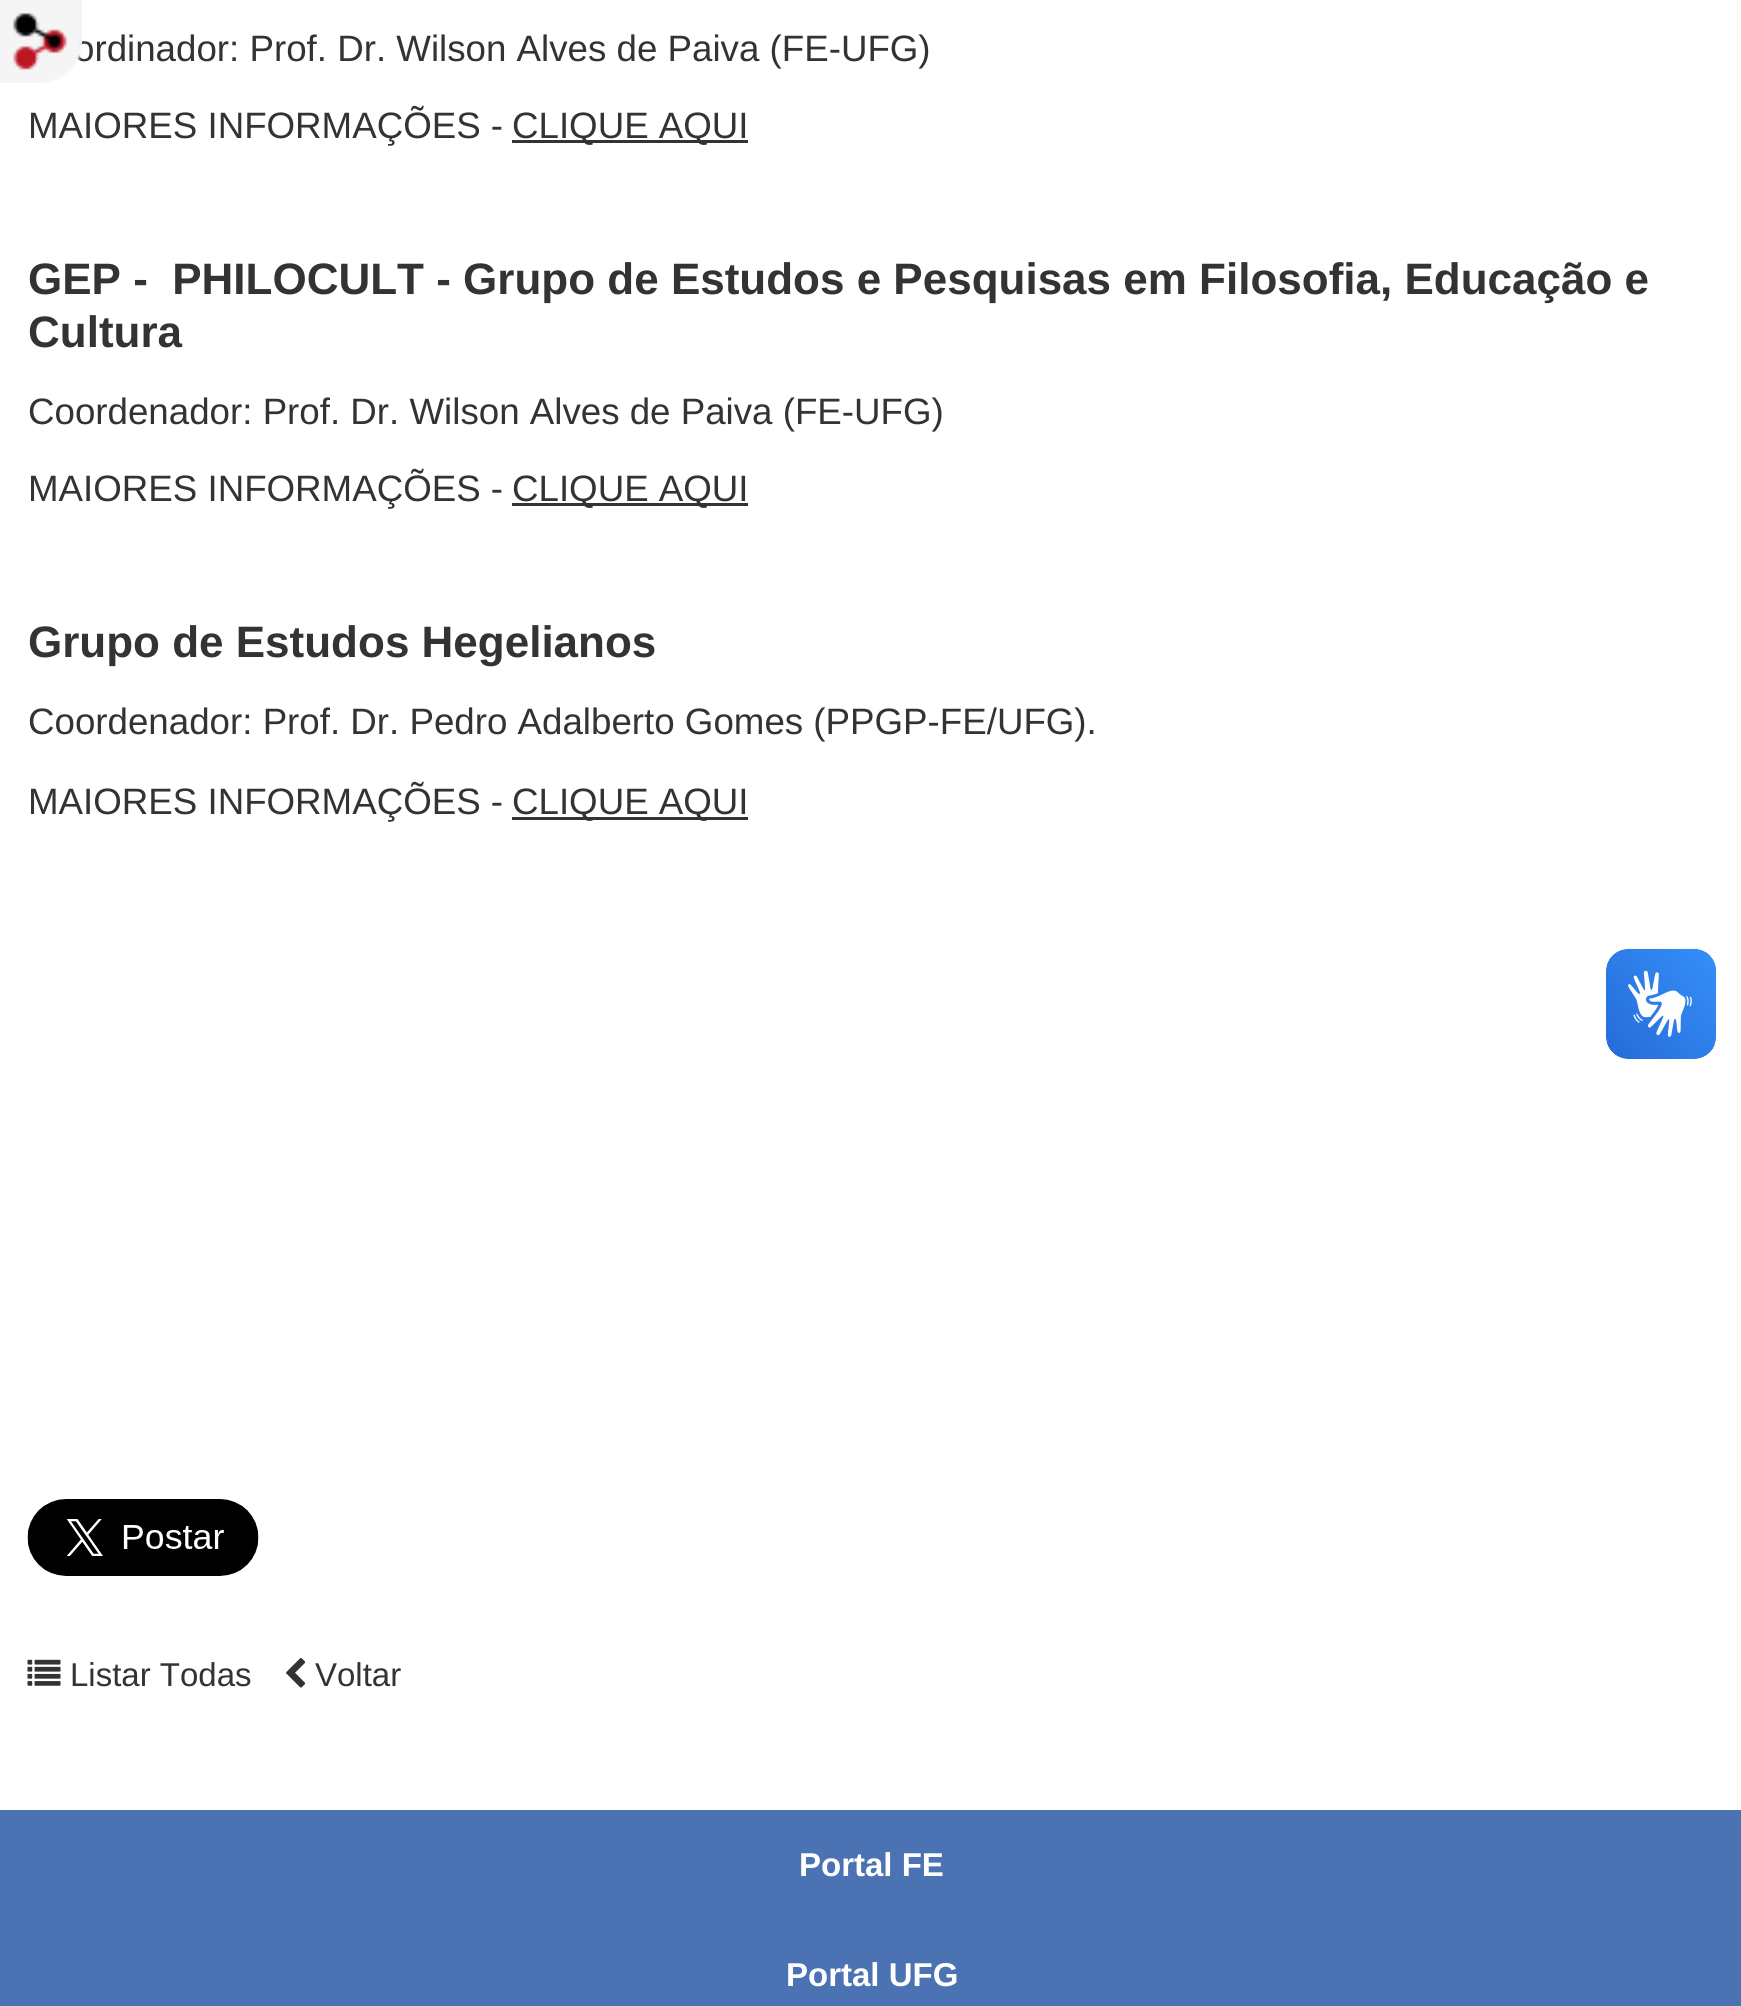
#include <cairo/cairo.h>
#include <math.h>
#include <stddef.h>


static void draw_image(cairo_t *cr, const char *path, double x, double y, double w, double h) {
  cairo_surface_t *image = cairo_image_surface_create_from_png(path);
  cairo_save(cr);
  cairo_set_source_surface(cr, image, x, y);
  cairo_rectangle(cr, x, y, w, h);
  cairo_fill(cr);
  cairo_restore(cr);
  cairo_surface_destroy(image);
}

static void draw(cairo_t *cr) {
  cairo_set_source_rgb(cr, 1, 1, 1);
  cairo_paint(cr);
  cairo_set_source_rgb(cr, 51 / 255.0, 51 / 255.0, 51 / 255.0);
  cairo_rectangle(cr, 512, 140, 236, 3);
  cairo_fill(cr);
  cairo_rectangle(cr, 512, 503, 236, 3);
  cairo_fill(cr);
  cairo_rectangle(cr, 512, 817, 236, 3);
  cairo_fill(cr);
  draw_image(cr, "images/2.png", 27, 1499, 232, 77);
  draw_image(cr, "images/3.png", 27, 1659, 34, 27);
  draw_image(cr, "images/4.png", 286, 1658, 20, 30);
  draw_image(cr, "images/5.png", 1606, 948, 110, 111);
  draw_image(cr, "images/6.png", 1606, 949, 110, 110);
  cairo_set_source_rgb(cr, 75 / 255.0, 115 / 255.0, 179 / 255.0);
  cairo_rectangle(cr, 0, 1810, 1741, 196);
  cairo_fill(cr);
  cairo_select_font_face(cr, "Liberation Sans", CAIRO_FONT_SLANT_NORMAL, CAIRO_FONT_WEIGHT_NORMAL);
  cairo_set_font_size(cr, 36.7);
  cairo_set_source_rgb(cr, 51 / 255.0, 51 / 255.0, 51 / 255.0);
  cairo_move_to(cr, 74, 61);
  cairo_show_text(cr, "ordinador: Prof. Dr. Wilson Alves de Paiva (FE-UFG)");
  draw_image(cr, "images/1.png", 0, 0, 82, 83);
  cairo_move_to(cr, 28, 138);
  cairo_show_text(cr, "MAIORES INFORMAÇÕES -");
  cairo_move_to(cr, 512, 138);
  cairo_show_text(cr, "CLIQUE AQUI");
  cairo_select_font_face(cr, "Liberation Sans", CAIRO_FONT_SLANT_NORMAL, CAIRO_FONT_WEIGHT_BOLD);
  cairo_set_font_size(cr, 44);
  cairo_move_to(cr, 28, 294);
  cairo_show_text(cr, "GEP -  PHILOCULT - Grupo de Estudos e Pesquisas em Filosofia, Educação e");
  cairo_move_to(cr, 28, 347);
  cairo_show_text(cr, "Cultura");
  cairo_select_font_face(cr, "Liberation Sans", CAIRO_FONT_SLANT_NORMAL, CAIRO_FONT_WEIGHT_NORMAL);
  cairo_set_font_size(cr, 36.7);
  cairo_move_to(cr, 28, 424);
  cairo_show_text(cr, "Coordenador: Prof. Dr. Wilson Alves de Paiva (FE-UFG)");
  cairo_move_to(cr, 28, 501);
  cairo_show_text(cr, "MAIORES INFORMAÇÕES -");
  cairo_move_to(cr, 512, 501);
  cairo_show_text(cr, "CLIQUE AQUI");
  cairo_select_font_face(cr, "Liberation Sans", CAIRO_FONT_SLANT_NORMAL, CAIRO_FONT_WEIGHT_BOLD);
  cairo_set_font_size(cr, 44);
  cairo_move_to(cr, 28, 657);
  cairo_show_text(cr, "Grupo de Estudos Hegelianos");
  cairo_select_font_face(cr, "Liberation Sans", CAIRO_FONT_SLANT_NORMAL, CAIRO_FONT_WEIGHT_NORMAL);
  cairo_set_font_size(cr, 36.7);
  cairo_move_to(cr, 28, 734);
  cairo_show_text(cr, "Coordenador: Prof. Dr. Pedro Adalberto Gomes (PPGP-FE/UFG).");
  cairo_move_to(cr, 28, 814);
  cairo_show_text(cr, "MAIORES INFORMAÇÕES -");
  cairo_move_to(cr, 512, 814);
  cairo_show_text(cr, "CLIQUE AQUI");
  cairo_set_font_size(cr, 33);
  cairo_move_to(cr, 70, 1686);
  cairo_show_text(cr, "Listar Todas");
  cairo_move_to(cr, 315, 1686);
  cairo_show_text(cr, "Voltar");
  cairo_select_font_face(cr, "Liberation Sans", CAIRO_FONT_SLANT_NORMAL, CAIRO_FONT_WEIGHT_BOLD);
  cairo_set_source_rgb(cr, 1, 1, 1);
  cairo_move_to(cr, 799, 1876);
  cairo_show_text(cr, "Portal FE");
  cairo_move_to(cr, 786, 1986);
  cairo_show_text(cr, "Portal UFG");
}

int main(void) {
  cairo_surface_t *surface = cairo_image_surface_create(CAIRO_FORMAT_RGB24, 1741, 2006);
  cairo_t *cr = cairo_create(surface);
  cairo_font_options_t *options = cairo_font_options_create();
  cairo_font_options_set_hint_metrics(options, CAIRO_HINT_METRICS_OFF);
  cairo_font_options_set_hint_style(options, CAIRO_HINT_STYLE_NONE);
  cairo_set_font_options(cr, options);
  cairo_set_miter_limit(cr, 4);
  draw(cr);
  cairo_surface_write_to_png(surface, "out.png");
  cairo_font_options_destroy(options);
  cairo_destroy(cr);
  cairo_surface_destroy(surface);
  return 0;
}
